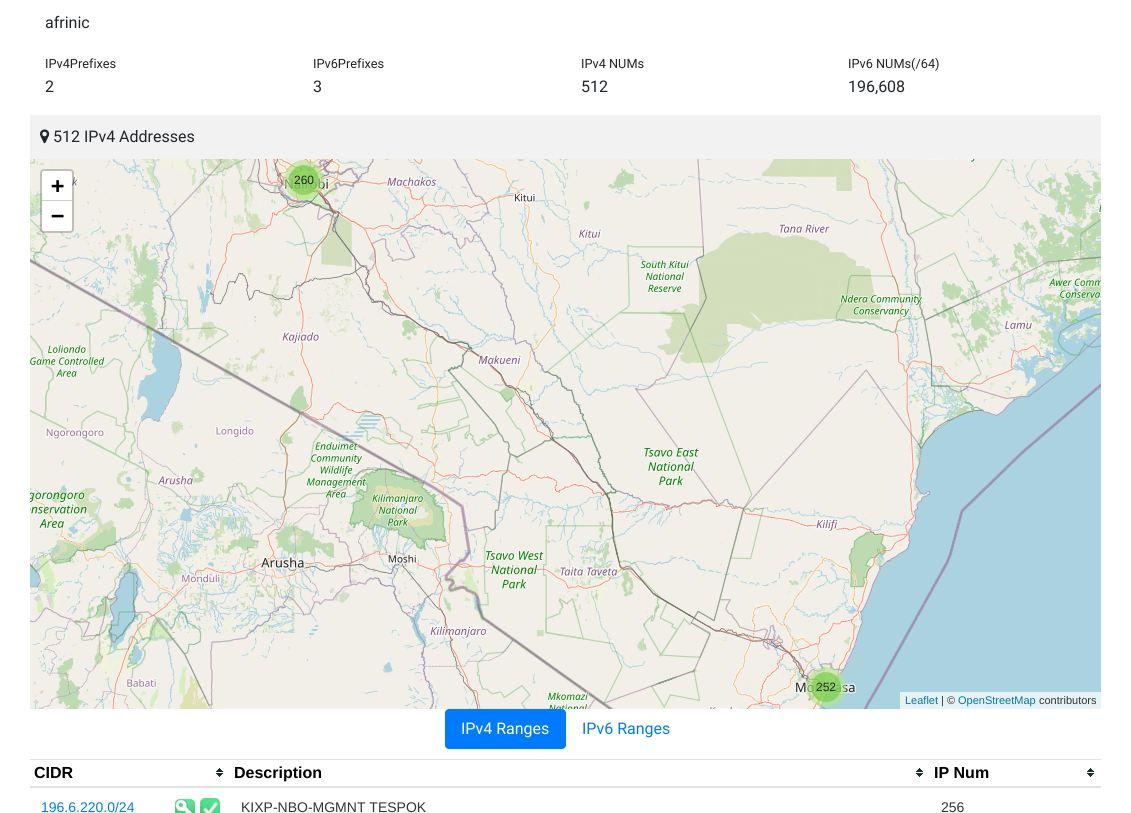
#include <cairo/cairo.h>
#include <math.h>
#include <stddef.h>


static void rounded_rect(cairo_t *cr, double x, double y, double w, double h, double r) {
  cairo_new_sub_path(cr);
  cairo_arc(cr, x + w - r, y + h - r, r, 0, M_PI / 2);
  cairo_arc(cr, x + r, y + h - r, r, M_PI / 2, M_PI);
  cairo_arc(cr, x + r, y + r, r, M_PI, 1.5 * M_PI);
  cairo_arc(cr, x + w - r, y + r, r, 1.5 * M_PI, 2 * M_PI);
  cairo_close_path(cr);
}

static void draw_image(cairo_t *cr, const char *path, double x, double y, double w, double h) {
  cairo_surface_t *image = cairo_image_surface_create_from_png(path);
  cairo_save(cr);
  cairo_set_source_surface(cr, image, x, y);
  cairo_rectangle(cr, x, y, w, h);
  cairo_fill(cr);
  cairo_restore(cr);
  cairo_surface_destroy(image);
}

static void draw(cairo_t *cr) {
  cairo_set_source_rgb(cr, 1, 1, 1);
  cairo_paint(cr);
  cairo_set_source_rgb(cr, 242 / 255.0, 242 / 255.0, 242 / 255.0);
  cairo_rectangle(cr, 30, 115, 1071, 44);
  cairo_fill(cr);
  draw_image(cr, "images/1.png", 40, 129, 10, 15);
  draw_image(cr, "images/2.png", 30, 159, 230, 46);
  draw_image(cr, "images/3.png", 260, 159, 256, 46);
  draw_image(cr, "images/4.png", 516, 159, 256, 46);
  draw_image(cr, "images/5.png", 772, 159, 256, 46);
  draw_image(cr, "images/6.png", 1028, 159, 73, 46);
  draw_image(cr, "images/7.png", 30, 205, 230, 256);
  draw_image(cr, "images/8.png", 260, 205, 256, 256);
  draw_image(cr, "images/9.png", 516, 205, 256, 256);
  draw_image(cr, "images/10.png", 772, 205, 256, 256);
  draw_image(cr, "images/11.png", 1028, 205, 73, 256);
  draw_image(cr, "images/12.png", 30, 461, 230, 248);
  draw_image(cr, "images/13.png", 260, 461, 256, 248);
  draw_image(cr, "images/14.png", 516, 461, 256, 248);
  draw_image(cr, "images/15.png", 772, 461, 256, 248);
  cairo_set_source_rgb(cr, 170 / 255.0, 211 / 255.0, 223 / 255.0);
  cairo_rectangle(cr, 1028, 461, 73, 231);
  cairo_fill(cr);
  cairo_set_source_rgba(cr, 181 / 255.0, 226 / 255.0, 140 / 255.0, 0.6);
  cairo_arc(cr, 304, 180, 20, 0, 2 * M_PI);
  cairo_fill(cr);
  cairo_set_source_rgba(cr, 110 / 255.0, 204 / 255.0, 57 / 255.0, 0.6);
  cairo_arc(cr, 304, 180, 15, 0, 2 * M_PI);
  cairo_fill(cr);
  cairo_set_source_rgba(cr, 181 / 255.0, 226 / 255.0, 140 / 255.0, 0.6);
  cairo_arc(cr, 826, 687, 20, 0, 2 * M_PI);
  cairo_fill(cr);
  cairo_set_source_rgba(cr, 110 / 255.0, 204 / 255.0, 57 / 255.0, 0.6);
  cairo_arc(cr, 826, 687, 15, 0, 2 * M_PI);
  cairo_fill(cr);
  rounded_rect(cr, 41, 170, 32, 62, 3);
  cairo_set_source_rgba(cr, 0, 0, 0, 0.2);
  cairo_stroke(cr);
  cairo_set_source_rgb(cr, 1, 1, 1);
  cairo_new_path(cr);
  cairo_move_to(cr, 44, 171);
  cairo_line_to(cr, 70, 171);
  cairo_curve_to(cr, 71, 171, 72, 172, 72, 173);
  cairo_line_to(cr, 72, 201);
  cairo_line_to(cr, 42, 201);
  cairo_line_to(cr, 42, 173);
  cairo_curve_to(cr, 42, 172, 43, 171, 44, 171);
  cairo_close_path(cr);
  cairo_fill(cr);
  cairo_set_source_rgb(cr, 204 / 255.0, 204 / 255.0, 204 / 255.0);
  cairo_rectangle(cr, 42, 200, 30, 1);
  cairo_fill(cr);
  cairo_set_source_rgb(cr, 1, 1, 1);
  cairo_new_path(cr);
  cairo_move_to(cr, 42, 201);
  cairo_line_to(cr, 72, 201);
  cairo_line_to(cr, 72, 229);
  cairo_curve_to(cr, 72, 230, 71, 231, 70, 231);
  cairo_line_to(cr, 44, 231);
  cairo_curve_to(cr, 43, 231, 42, 230, 42, 229);
  cairo_close_path(cr);
  cairo_fill(cr);
  cairo_set_source_rgb(cr, 230 / 255.0, 242 / 255.0, 245 / 255.0);
  cairo_rectangle(cr, 900, 692, 201, 17);
  cairo_fill(cr);
  cairo_set_source_rgb(cr, 0, 123 / 255.0, 1);
  rounded_rect(cr, 445, 709, 121, 40, 4);
  cairo_fill(cr);
  draw_image(cr, "images/16.png", 216, 768, 7, 9);
  draw_image(cr, "images/16.png", 916, 768, 7, 9);
  draw_image(cr, "images/16.png", 1087, 768, 7, 9);
  cairo_set_source_rgb(cr, 222 / 255.0, 226 / 255.0, 230 / 255.0);
  cairo_rectangle(cr, 30, 759, 1071, 1);
  cairo_fill(cr);
  cairo_rectangle(cr, 30, 786, 1071, 2);
  cairo_fill(cr);
  draw_image(cr, "images/17.png", 175, 799, 20, 14);
  draw_image(cr, "images/18.png", 200, 798, 20, 15);
  cairo_select_font_face(cr, "Roboto", CAIRO_FONT_SLANT_NORMAL, CAIRO_FONT_WEIGHT_NORMAL);
  cairo_set_font_size(cr, 16);
  cairo_set_source_rgb(cr, 33 / 255.0, 37 / 255.0, 41 / 255.0);
  cairo_move_to(cr, 45, 28);
  cairo_show_text(cr, "afrinic");
  cairo_set_font_size(cr, 12.75);
  cairo_move_to(cr, 45, 68);
  cairo_show_text(cr, "IPv4Prefixes");
  cairo_set_font_size(cr, 16);
  cairo_move_to(cr, 45, 92);
  cairo_show_text(cr, "2");
  cairo_set_font_size(cr, 12.75);
  cairo_move_to(cr, 313, 68);
  cairo_show_text(cr, "IPv6Prefixes");
  cairo_set_font_size(cr, 16);
  cairo_move_to(cr, 313, 92);
  cairo_show_text(cr, "3");
  cairo_set_font_size(cr, 12.75);
  cairo_move_to(cr, 581, 68);
  cairo_show_text(cr, "IPv4 NUMs");
  cairo_set_font_size(cr, 16);
  cairo_move_to(cr, 581, 92);
  cairo_show_text(cr, "512");
  cairo_set_font_size(cr, 12.75);
  cairo_move_to(cr, 848, 68);
  cairo_show_text(cr, "IPv6 NUMs(/64)");
  cairo_set_font_size(cr, 16);
  cairo_move_to(cr, 848, 92);
  cairo_show_text(cr, "196,608");
  cairo_move_to(cr, 53, 142);
  cairo_show_text(cr, "512 IPv4 Addresses");
  cairo_select_font_face(cr, "Liberation Sans", CAIRO_FONT_SLANT_NORMAL, CAIRO_FONT_WEIGHT_NORMAL);
  cairo_set_font_size(cr, 12);
  cairo_move_to(cr, 294, 184);
  cairo_show_text(cr, "260");
  cairo_move_to(cr, 816, 691);
  cairo_show_text(cr, "252");
  cairo_select_font_face(cr, "DejaVu Sans Mono", CAIRO_FONT_SLANT_NORMAL, CAIRO_FONT_WEIGHT_BOLD);
  cairo_set_font_size(cr, 22);
  cairo_set_source_rgb(cr, 0, 0, 0);
  cairo_move_to(cr, 51, 193);
  cairo_show_text(cr, "+");
  cairo_move_to(cr, 51, 223);
  cairo_show_text(cr, "−");
  cairo_select_font_face(cr, "Liberation Sans", CAIRO_FONT_SLANT_NORMAL, CAIRO_FONT_WEIGHT_NORMAL);
  cairo_set_font_size(cr, 11);
  cairo_set_source_rgb(cr, 0, 120 / 255.0, 168 / 255.0);
  cairo_move_to(cr, 905, 704);
  cairo_show_text(cr, "Leaflet");
  cairo_set_source_rgb(cr, 51 / 255.0, 51 / 255.0, 51 / 255.0);
  cairo_move_to(cr, 941, 704);
  cairo_show_text(cr, "| ©");
  cairo_set_source_rgb(cr, 0, 120 / 255.0, 168 / 255.0);
  cairo_move_to(cr, 958, 704);
  cairo_show_text(cr, "OpenStreetMap");
  cairo_set_source_rgb(cr, 51 / 255.0, 51 / 255.0, 51 / 255.0);
  cairo_move_to(cr, 1039, 704);
  cairo_show_text(cr, "contributors");
  cairo_select_font_face(cr, "Roboto", CAIRO_FONT_SLANT_NORMAL, CAIRO_FONT_WEIGHT_NORMAL);
  cairo_set_font_size(cr, 16);
  cairo_set_source_rgb(cr, 1, 1, 1);
  cairo_move_to(cr, 461, 734);
  cairo_show_text(cr, "IPv4 Ranges");
  cairo_set_source_rgb(cr, 0, 123 / 255.0, 1);
  cairo_move_to(cr, 582, 734);
  cairo_show_text(cr, "IPv6 Ranges");
  cairo_select_font_face(cr, "Liberation Sans", CAIRO_FONT_SLANT_NORMAL, CAIRO_FONT_WEIGHT_BOLD);
  cairo_set_source_rgb(cr, 0, 0, 0);
  cairo_move_to(cr, 34, 778);
  cairo_show_text(cr, "CIDR");
  cairo_move_to(cr, 234, 778);
  cairo_show_text(cr, "Description");
  cairo_move_to(cr, 934, 778);
  cairo_show_text(cr, "IP Num");
  cairo_select_font_face(cr, "Liberation Sans", CAIRO_FONT_SLANT_NORMAL, CAIRO_FONT_WEIGHT_NORMAL);
  cairo_set_font_size(cr, 14);
  cairo_set_source_rgb(cr, 0, 123 / 255.0, 1);
  cairo_move_to(cr, 41, 812);
  cairo_show_text(cr, "196.6.220.0/24");
  cairo_set_source_rgb(cr, 51 / 255.0, 51 / 255.0, 51 / 255.0);
  cairo_move_to(cr, 241, 812);
  cairo_show_text(cr, "KIXP-NBO-MGMNT TESPOK");
  cairo_move_to(cr, 941, 812);
  cairo_show_text(cr, "256");
}

int main(void) {
  cairo_surface_t *surface = cairo_image_surface_create(CAIRO_FORMAT_RGB24, 1131, 813);
  cairo_t *cr = cairo_create(surface);
  cairo_font_options_t *options = cairo_font_options_create();
  cairo_font_options_set_hint_metrics(options, CAIRO_HINT_METRICS_OFF);
  cairo_font_options_set_hint_style(options, CAIRO_HINT_STYLE_NONE);
  cairo_set_font_options(cr, options);
  cairo_set_miter_limit(cr, 4);
  draw(cr);
  cairo_surface_write_to_png(surface, "out.png");
  cairo_font_options_destroy(options);
  cairo_destroy(cr);
  cairo_surface_destroy(surface);
  return 0;
}
